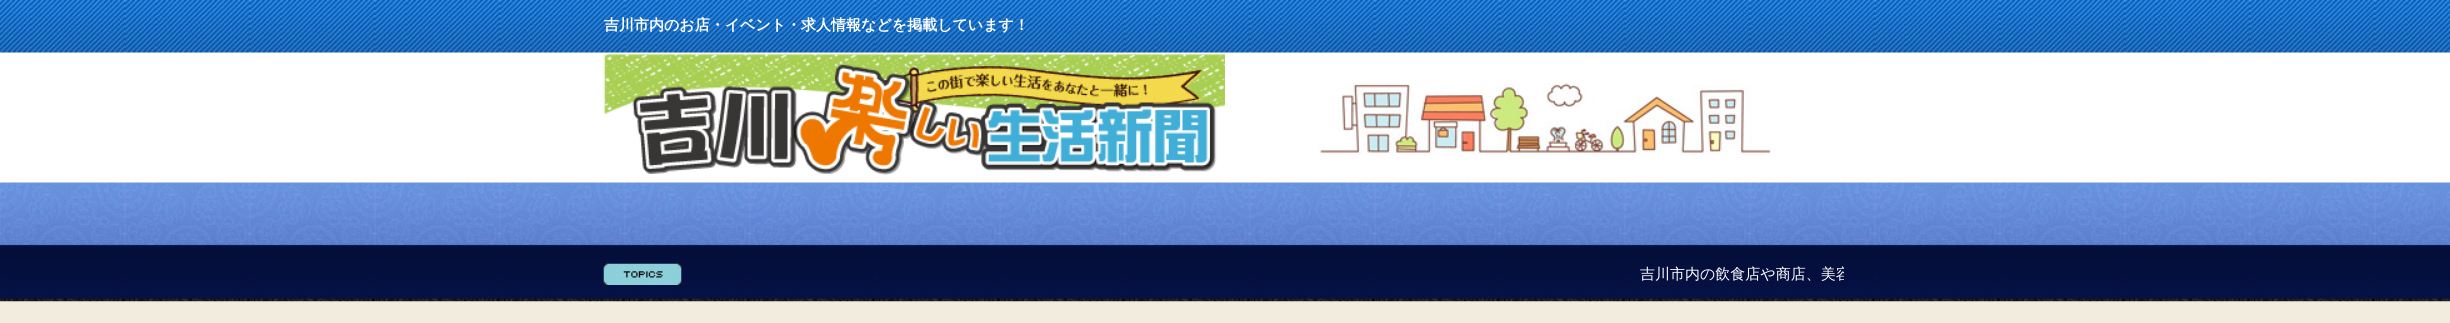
#include <cairo/cairo.h>
#include <math.h>
#include <stddef.h>


static void draw_image(cairo_t *cr, const char *path, double x, double y, double w, double h) {
  cairo_surface_t *image = cairo_image_surface_create_from_png(path);
  cairo_save(cr);
  cairo_set_source_surface(cr, image, x, y);
  cairo_rectangle(cr, x, y, w, h);
  cairo_fill(cr);
  cairo_restore(cr);
  cairo_surface_destroy(image);
}

static void draw(cairo_t *cr) {
  cairo_set_source_rgb(cr, 242 / 255.0, 236 / 255.0, 222 / 255.0);
  cairo_paint(cr);
  draw_image(cr, "images/1.png", 0, 0, 2450, 302);
  draw_image(cr, "images/2.png", 603, 53, 622, 122);
  draw_image(cr, "images/3.png", 1319, 83, 457, 72);
  draw_image(cr, "images/4.png", 603, 263, 79, 22);
  cairo_select_font_face(cr, "WenQuanYi Zen Hei", CAIRO_FONT_SLANT_NORMAL, CAIRO_FONT_WEIGHT_BOLD);
  cairo_set_font_size(cr, 15);
  cairo_set_source_rgb(cr, 1, 1, 1);
  cairo_move_to(cr, 604, 30);
  cairo_show_text(cr, "吉川市内のお店・イベント・求人情報などを掲載しています！");
  cairo_save(cr);
  cairo_rectangle(cr, 699, 260, 1145, 29);
  cairo_clip(cr);
  cairo_select_font_face(cr, "WenQuanYi Zen Hei Medium", CAIRO_FONT_SLANT_NORMAL, CAIRO_FONT_WEIGHT_NORMAL);
  cairo_move_to(cr, 1640, 279);
  cairo_show_text(cr, "吉川市内の飲食店や商店、美容");
  cairo_restore(cr);
}

int main(void) {
  cairo_surface_t *surface = cairo_image_surface_create(CAIRO_FORMAT_RGB24, 2450, 323);
  cairo_t *cr = cairo_create(surface);
  cairo_font_options_t *options = cairo_font_options_create();
  cairo_font_options_set_hint_metrics(options, CAIRO_HINT_METRICS_OFF);
  cairo_font_options_set_hint_style(options, CAIRO_HINT_STYLE_NONE);
  cairo_set_font_options(cr, options);
  cairo_set_miter_limit(cr, 4);
  draw(cr);
  cairo_surface_write_to_png(surface, "out.png");
  cairo_font_options_destroy(options);
  cairo_destroy(cr);
  cairo_surface_destroy(surface);
  return 0;
}
